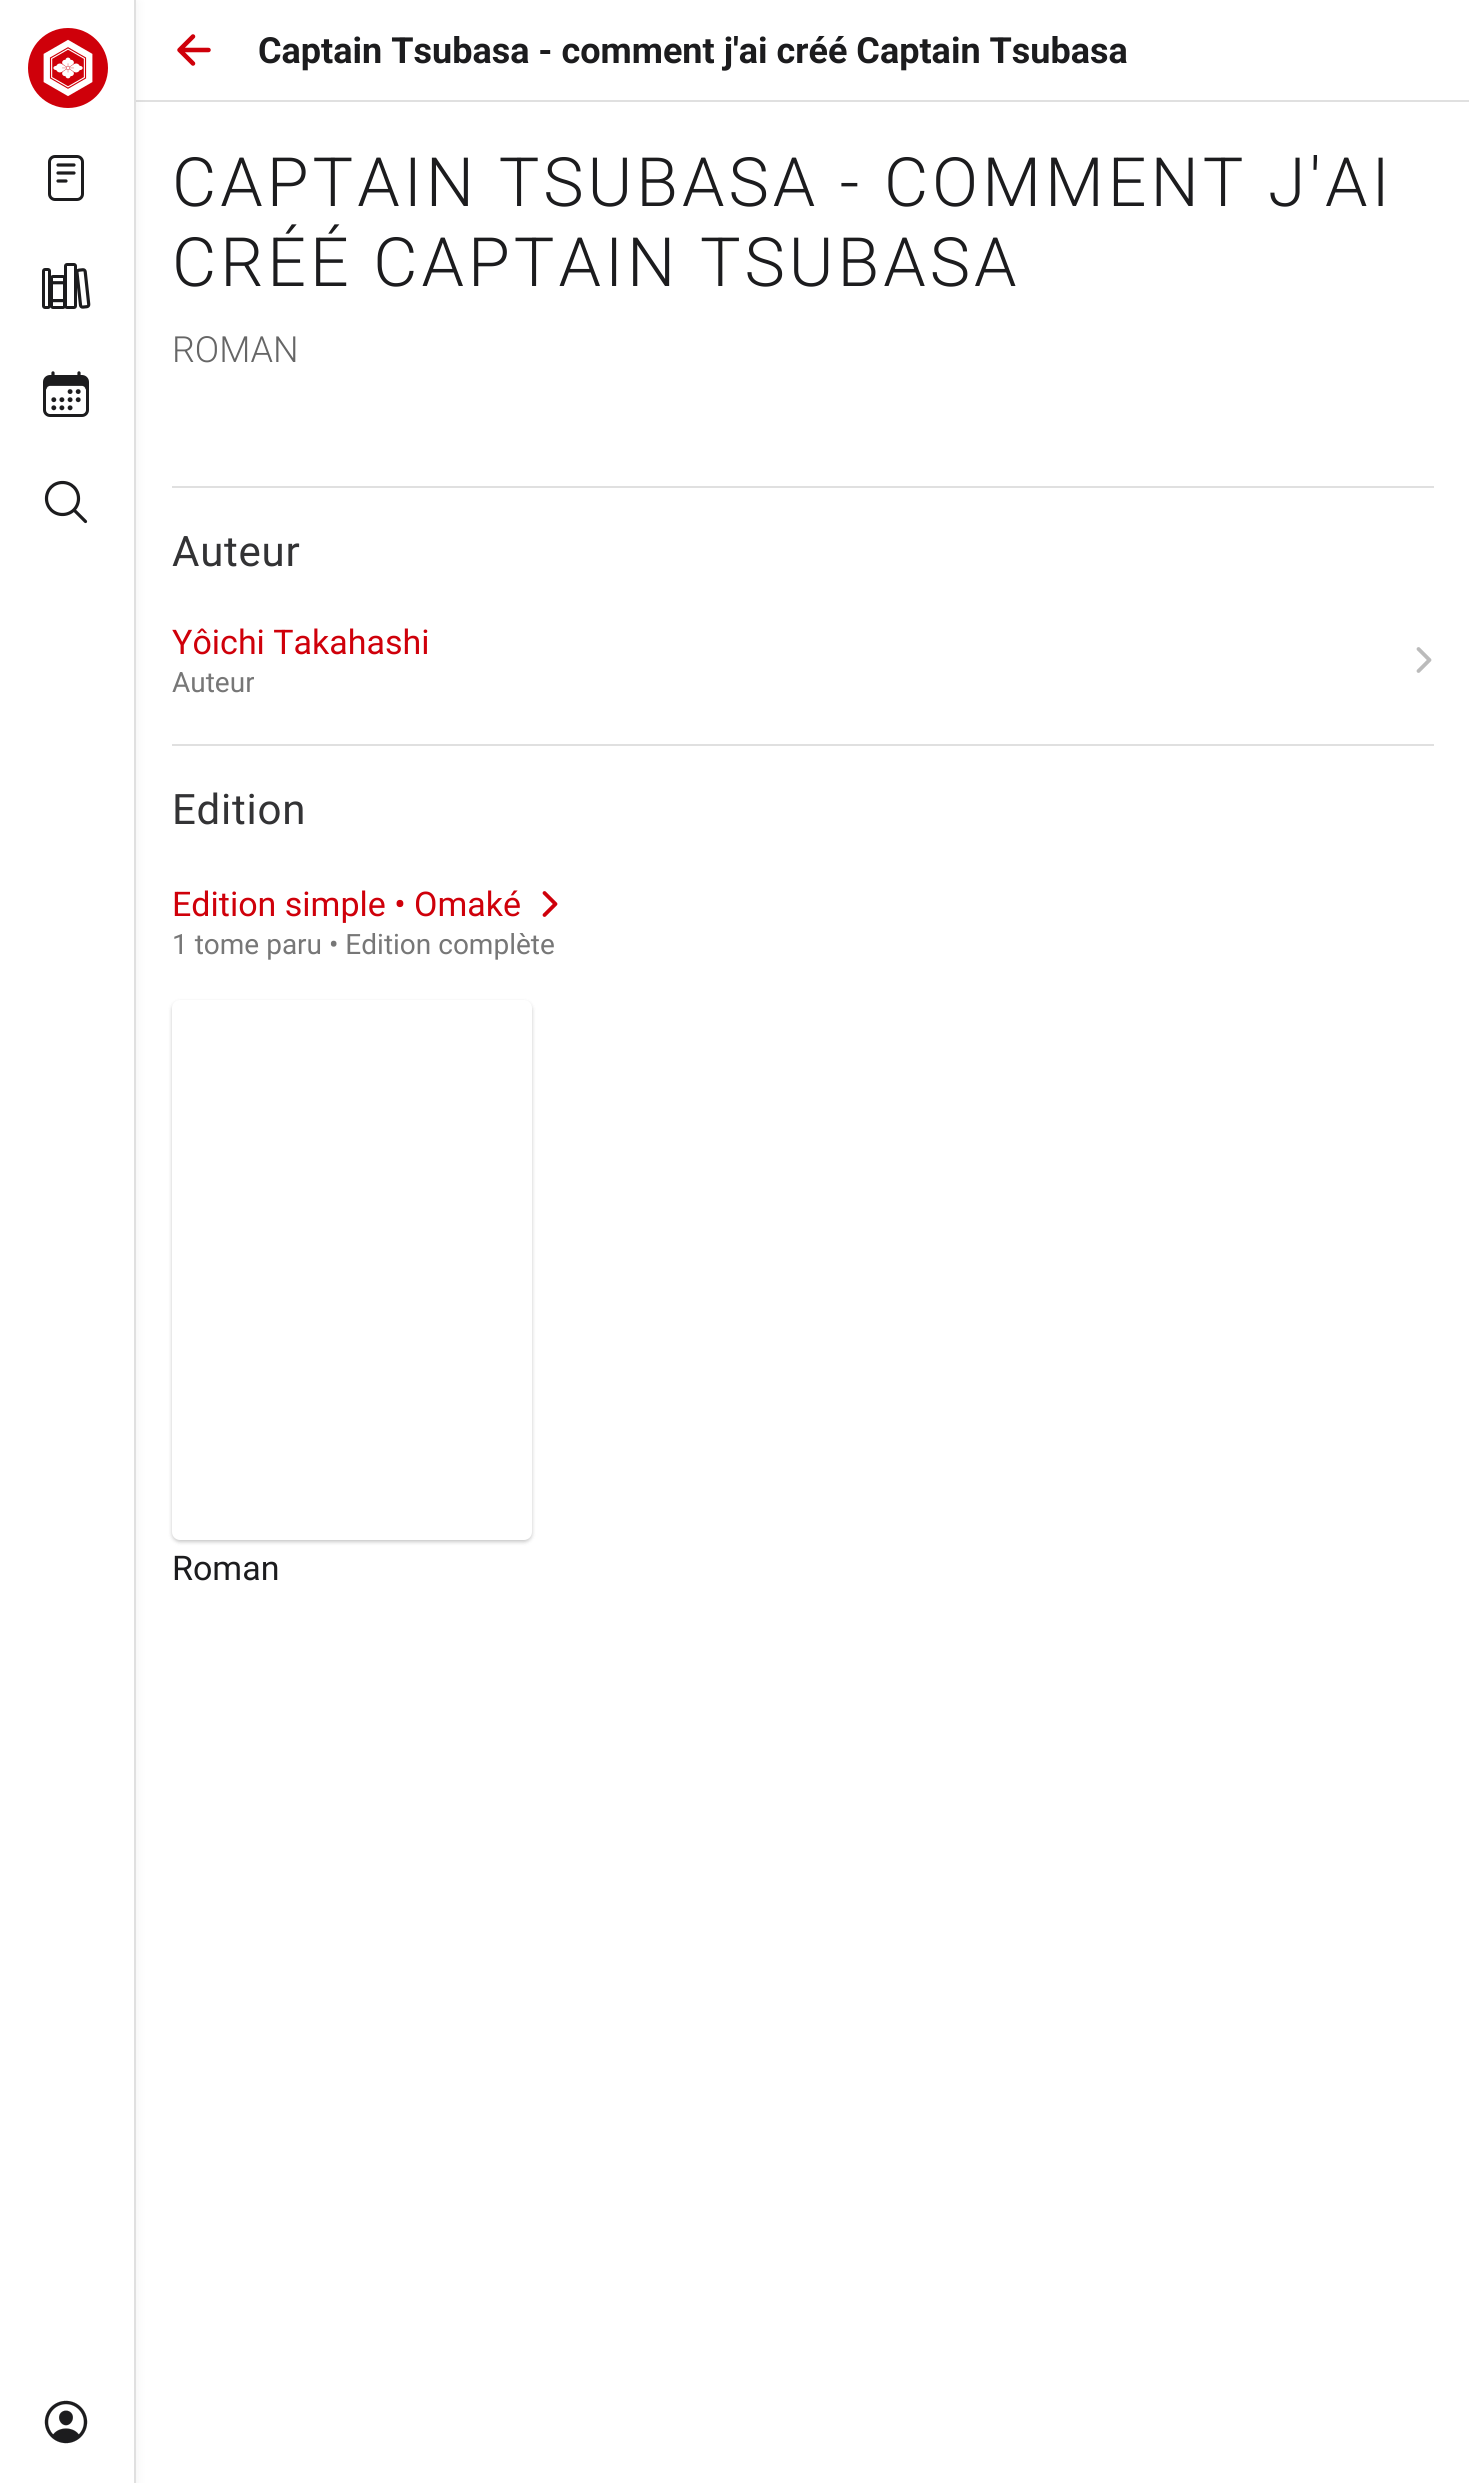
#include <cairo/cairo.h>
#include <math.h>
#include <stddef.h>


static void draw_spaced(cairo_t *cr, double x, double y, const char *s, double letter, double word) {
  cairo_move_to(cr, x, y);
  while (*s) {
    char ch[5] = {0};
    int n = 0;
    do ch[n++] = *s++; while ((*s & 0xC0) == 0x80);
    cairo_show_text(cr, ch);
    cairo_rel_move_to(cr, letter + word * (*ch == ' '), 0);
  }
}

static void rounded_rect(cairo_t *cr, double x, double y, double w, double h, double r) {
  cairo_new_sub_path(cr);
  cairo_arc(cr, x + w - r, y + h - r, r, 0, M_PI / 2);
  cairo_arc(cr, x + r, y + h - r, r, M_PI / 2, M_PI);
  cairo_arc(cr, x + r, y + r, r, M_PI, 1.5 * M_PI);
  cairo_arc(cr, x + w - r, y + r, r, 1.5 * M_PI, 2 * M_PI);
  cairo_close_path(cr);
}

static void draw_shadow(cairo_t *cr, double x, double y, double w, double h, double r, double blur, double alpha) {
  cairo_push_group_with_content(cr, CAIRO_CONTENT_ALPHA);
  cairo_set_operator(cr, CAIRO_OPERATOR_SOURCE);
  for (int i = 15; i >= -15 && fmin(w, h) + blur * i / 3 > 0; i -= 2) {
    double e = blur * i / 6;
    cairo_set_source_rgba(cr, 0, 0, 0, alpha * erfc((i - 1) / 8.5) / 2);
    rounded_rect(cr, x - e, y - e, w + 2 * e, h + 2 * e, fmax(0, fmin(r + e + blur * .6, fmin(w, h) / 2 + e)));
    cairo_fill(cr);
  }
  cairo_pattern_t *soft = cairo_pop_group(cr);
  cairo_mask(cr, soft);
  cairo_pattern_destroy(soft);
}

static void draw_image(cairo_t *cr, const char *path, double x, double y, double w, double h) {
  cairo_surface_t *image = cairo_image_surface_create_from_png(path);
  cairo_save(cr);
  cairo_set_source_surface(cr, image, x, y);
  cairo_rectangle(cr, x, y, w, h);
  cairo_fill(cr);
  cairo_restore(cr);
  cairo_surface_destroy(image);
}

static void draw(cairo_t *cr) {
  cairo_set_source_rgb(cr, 1, 1, 1);
  cairo_paint(cr);
  cairo_set_source_rgb(cr, 224 / 255.0, 224 / 255.0, 224 / 255.0);
  cairo_rectangle(cr, 136, 100, 1333, 2);
  cairo_fill(cr);
  cairo_set_source_rgb(cr, 0, 0, 0);
  draw_shadow(cr, 0, 2, 136, 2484, 0, 6, 0.06);
  cairo_set_source_rgb(cr, 1, 1, 1);
  cairo_rectangle(cr, 0, 0, 134, 2483);
  cairo_fill(cr);
  cairo_set_source_rgb(cr, 224 / 255.0, 224 / 255.0, 224 / 255.0);
  cairo_rectangle(cr, 134, 0, 2, 2483);
  cairo_fill(cr);
  draw_image(cr, "images/1.png", 28, 28, 80, 80);
  rounded_rect(cr, 49.5, 156.5, 33, 43, 5.5);
  cairo_set_source_rgb(cr, 28 / 255.0, 28 / 255.0, 30 / 255.0);
  cairo_set_line_width(cr, 3);
  cairo_stroke(cr);
  cairo_new_path(cr);
  cairo_move_to(cr, 58, 165);
  cairo_line_to(cr, 74, 165);
  cairo_move_to(cr, 58, 173);
  cairo_line_to(cr, 74, 173);
  cairo_move_to(cr, 58, 181);
  cairo_line_to(cr, 66, 181);
  cairo_set_line_width(cr, 3.2);
  cairo_set_line_cap(cr, CAIRO_LINE_CAP_ROUND);
  cairo_set_line_join(cr, CAIRO_LINE_JOIN_ROUND);
  cairo_stroke(cr);
  draw_image(cr, "images/2.png", 42, 263, 49, 46);
  draw_image(cr, "images/3.png", 43, 371, 46, 46);
  cairo_new_path(cr);
  cairo_move_to(cr, 62.5, 482.5);
  cairo_curve_to(cr, 53.5, 482.5, 46.5, 489.5, 46.5, 498.5);
  cairo_curve_to(cr, 46.5, 507.5, 53.5, 514.5, 62.5, 514.5);
  cairo_curve_to(cr, 71.5, 514.5, 78.5, 507.5, 78.5, 498.5);
  cairo_curve_to(cr, 78.5, 489.5, 71.5, 482.5, 62.5, 482.5);
  cairo_close_path(cr);
  cairo_set_line_cap(cr, CAIRO_LINE_CAP_BUTT);
  cairo_set_line_join(cr, CAIRO_LINE_JOIN_MITER);
  cairo_stroke(cr);
  cairo_new_path(cr);
  cairo_move_to(cr, 74.5, 510.5);
  cairo_line_to(cr, 85.5, 521.5);
  cairo_set_line_cap(cr, CAIRO_LINE_CAP_ROUND);
  cairo_stroke(cr);
  draw_image(cr, "images/4.png", 44, 2400, 44, 44);
  cairo_new_path(cr);
  cairo_move_to(cr, 193, 63.5);
  cairo_line_to(cr, 179.5, 50);
  cairo_line_to(cr, 193, 36.5);
  cairo_move_to(cr, 181, 50);
  cairo_line_to(cr, 208.5, 50);
  cairo_set_source_rgb(cr, 207 / 255.0, 0, 10 / 255.0);
  cairo_set_line_width(cr, 4.5);
  cairo_set_line_join(cr, CAIRO_LINE_JOIN_ROUND);
  cairo_stroke(cr);
  cairo_set_source_rgb(cr, 224 / 255.0, 224 / 255.0, 224 / 255.0);
  cairo_rectangle(cr, 172, 486, 1262, 2);
  cairo_fill(cr);
  cairo_new_path(cr);
  cairo_move_to(cr, 1418.5, 649);
  cairo_line_to(cr, 1429.5, 660);
  cairo_line_to(cr, 1418.5, 671);
  cairo_set_source_rgb(cr, 187 / 255.0, 187 / 255.0, 187 / 255.0);
  cairo_set_line_width(cr, 3.8);
  cairo_stroke(cr);
  cairo_set_source_rgb(cr, 224 / 255.0, 224 / 255.0, 224 / 255.0);
  cairo_rectangle(cr, 172, 744, 1262, 2);
  cairo_fill(cr);
  cairo_new_path(cr);
  cairo_move_to(cr, 544.5, 893);
  cairo_line_to(cr, 555.5, 904);
  cairo_line_to(cr, 544.5, 915);
  cairo_set_source_rgb(cr, 207 / 255.0, 0, 10 / 255.0);
  cairo_stroke(cr);
  cairo_set_source_rgb(cr, 0, 0, 0);
  draw_shadow(cr, 172, 1002, 360, 540, 8, 2, 0.22);
  cairo_set_source_rgb(cr, 1, 1, 1);
  rounded_rect(cr, 172, 1000, 360, 540, 8);
  cairo_fill(cr);
  cairo_select_font_face(cr, "Roboto", CAIRO_FONT_SLANT_NORMAL, CAIRO_FONT_WEIGHT_BOLD);
  cairo_set_font_size(cr, 36);
  cairo_set_source_rgb(cr, 28 / 255.0, 28 / 255.0, 30 / 255.0);
  cairo_move_to(cr, 258, 63);
  cairo_show_text(cr, "Captain Tsubasa - comment j'ai créé Captain Tsubasa");
  cairo_select_font_face(cr, "Roboto Light", CAIRO_FONT_SLANT_NORMAL, CAIRO_FONT_WEIGHT_NORMAL);
  cairo_set_font_size(cr, 68);
  draw_spaced(cr, 172, 206, "CAPTAIN TSUBASA - COMMENT J'AI", 4, 0);
  draw_spaced(cr, 172, 286, "CRÉÉ CAPTAIN TSUBASA", 4, 0);
  cairo_set_font_size(cr, 36);
  cairo_set_source_rgb(cr, 102 / 255.0, 102 / 255.0, 102 / 255.0);
  cairo_move_to(cr, 172, 362);
  cairo_show_text(cr, "ROMAN");
  cairo_select_font_face(cr, "Roboto", CAIRO_FONT_SLANT_NORMAL, CAIRO_FONT_WEIGHT_NORMAL);
  cairo_set_font_size(cr, 42);
  cairo_set_source_rgb(cr, 51 / 255.0, 51 / 255.0, 53 / 255.0);
  draw_spaced(cr, 172, 566, "Auteur", 0.75, 0);
  cairo_set_font_size(cr, 34);
  cairo_set_source_rgb(cr, 207 / 255.0, 0, 10 / 255.0);
  cairo_move_to(cr, 172, 654);
  cairo_show_text(cr, "Yôichi Takahashi");
  cairo_save(cr);
  cairo_rectangle(cr, 172, 666, 82, 32);
  cairo_clip(cr);
  cairo_set_font_size(cr, 28);
  cairo_set_source_rgb(cr, 119 / 255.0, 119 / 255.0, 119 / 255.0);
  cairo_move_to(cr, 172, 692);
  cairo_show_text(cr, "Auteur");
  cairo_restore(cr);
  cairo_set_font_size(cr, 42);
  cairo_set_source_rgb(cr, 51 / 255.0, 51 / 255.0, 53 / 255.0);
  draw_spaced(cr, 172, 824, "Edition", 0.75, 0);
  cairo_set_font_size(cr, 34);
  cairo_set_source_rgb(cr, 207 / 255.0, 0, 10 / 255.0);
  cairo_move_to(cr, 172, 916);
  cairo_show_text(cr, "Edition simple • Omaké");
  cairo_set_font_size(cr, 28);
  cairo_set_source_rgb(cr, 119 / 255.0, 119 / 255.0, 119 / 255.0);
  cairo_move_to(cr, 172, 954);
  cairo_show_text(cr, "1 tome paru • Edition complète");
  cairo_set_font_size(cr, 34);
  cairo_set_source_rgb(cr, 28 / 255.0, 28 / 255.0, 30 / 255.0);
  cairo_move_to(cr, 172, 1580);
  cairo_show_text(cr, "Roman");
}

int main(void) {
  cairo_surface_t *surface = cairo_image_surface_create(CAIRO_FORMAT_RGB24, 1469, 2483);
  cairo_t *cr = cairo_create(surface);
  cairo_font_options_t *options = cairo_font_options_create();
  cairo_font_options_set_hint_metrics(options, CAIRO_HINT_METRICS_OFF);
  cairo_font_options_set_hint_style(options, CAIRO_HINT_STYLE_NONE);
  cairo_set_font_options(cr, options);
  cairo_set_miter_limit(cr, 4);
  draw(cr);
  cairo_surface_write_to_png(surface, "out.png");
  cairo_font_options_destroy(options);
  cairo_destroy(cr);
  cairo_surface_destroy(surface);
  return 0;
}
